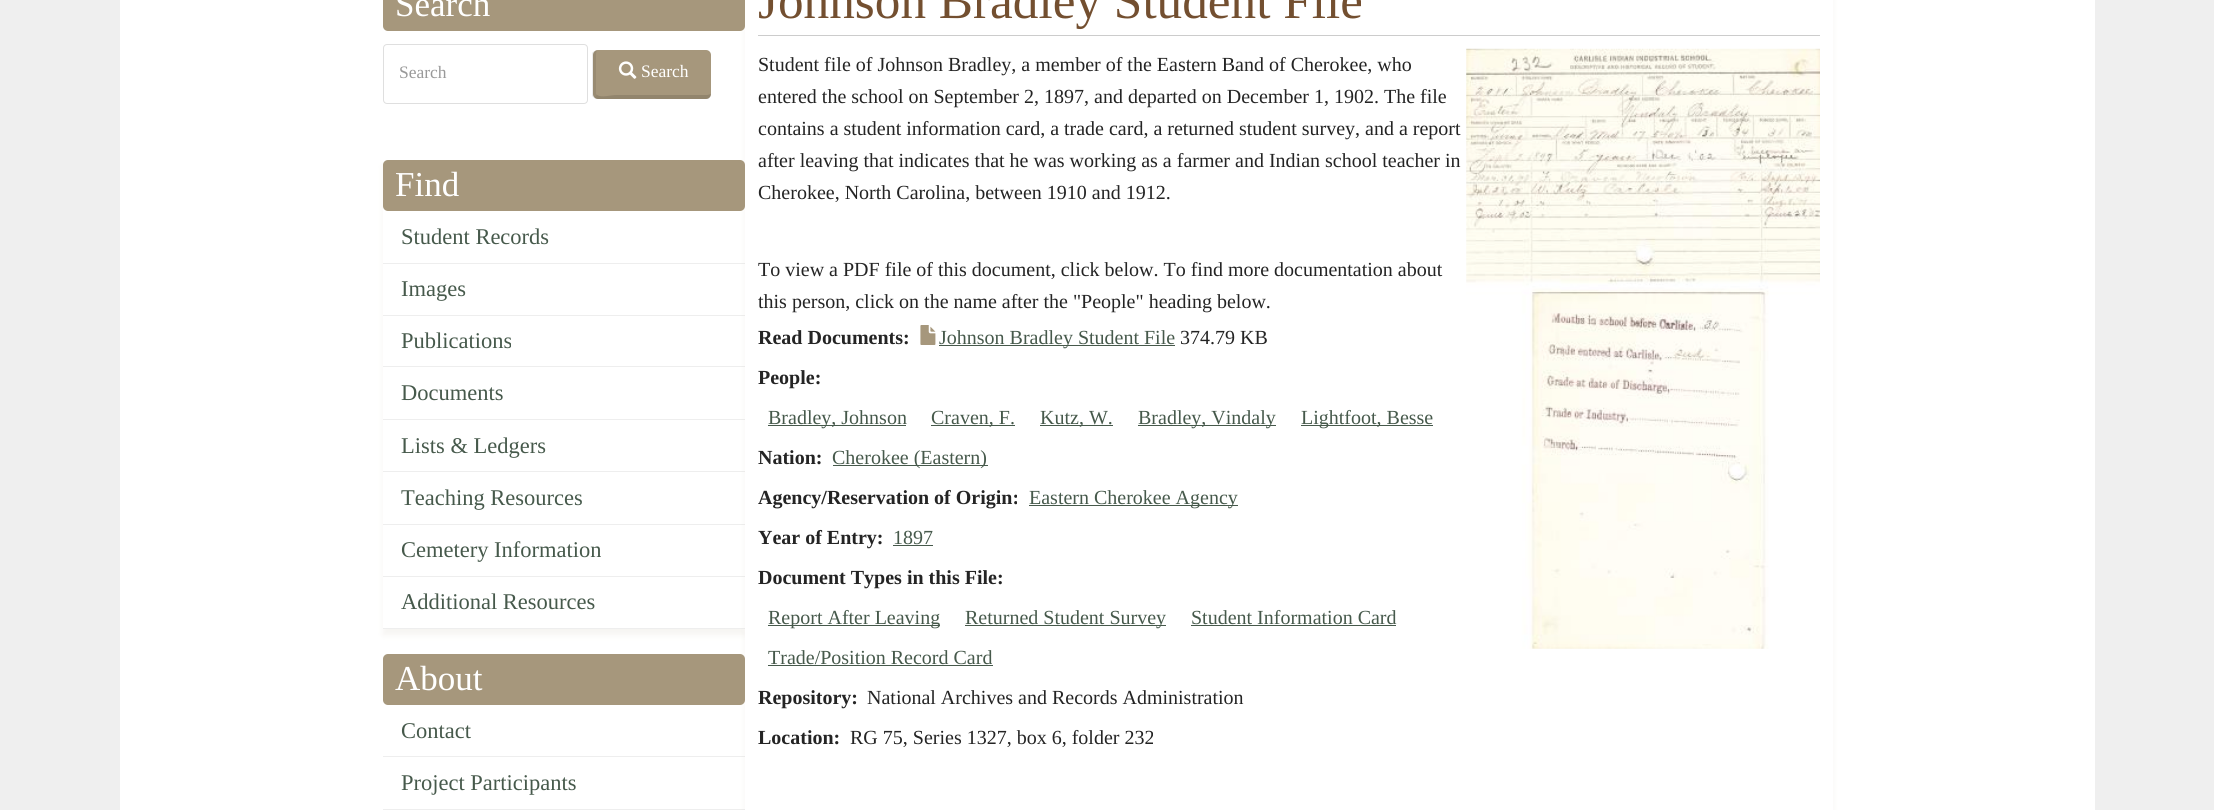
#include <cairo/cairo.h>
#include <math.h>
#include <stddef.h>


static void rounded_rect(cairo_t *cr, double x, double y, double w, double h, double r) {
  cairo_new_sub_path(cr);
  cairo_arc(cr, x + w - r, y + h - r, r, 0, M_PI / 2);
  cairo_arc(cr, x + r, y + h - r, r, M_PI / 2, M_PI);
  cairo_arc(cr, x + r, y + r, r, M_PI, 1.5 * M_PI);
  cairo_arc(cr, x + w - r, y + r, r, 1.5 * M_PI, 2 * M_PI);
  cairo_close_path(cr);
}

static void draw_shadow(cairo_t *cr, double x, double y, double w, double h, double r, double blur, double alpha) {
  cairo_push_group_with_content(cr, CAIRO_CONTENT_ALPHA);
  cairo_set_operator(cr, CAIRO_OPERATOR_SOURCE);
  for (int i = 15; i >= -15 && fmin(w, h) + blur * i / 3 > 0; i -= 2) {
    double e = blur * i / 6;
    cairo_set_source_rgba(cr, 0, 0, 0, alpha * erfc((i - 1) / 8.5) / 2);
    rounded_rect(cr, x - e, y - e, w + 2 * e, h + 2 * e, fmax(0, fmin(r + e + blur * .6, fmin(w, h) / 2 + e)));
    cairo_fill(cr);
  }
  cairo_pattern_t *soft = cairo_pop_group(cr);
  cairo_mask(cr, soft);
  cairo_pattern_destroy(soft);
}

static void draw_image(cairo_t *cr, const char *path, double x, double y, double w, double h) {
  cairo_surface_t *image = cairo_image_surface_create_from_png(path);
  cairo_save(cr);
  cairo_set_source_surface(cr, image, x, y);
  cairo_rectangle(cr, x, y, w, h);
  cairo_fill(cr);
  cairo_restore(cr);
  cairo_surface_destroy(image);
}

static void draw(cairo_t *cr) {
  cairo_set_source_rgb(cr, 239 / 255.0, 239 / 255.0, 239 / 255.0);
  cairo_paint(cr);
  cairo_set_source_rgb(cr, 1, 1, 1);
  cairo_rectangle(cr, 120, 0, 1975, 810);
  cairo_fill(cr);
  cairo_set_source_rgb(cr, 166 / 255.0, 151 / 255.0, 124 / 255.0);
  rounded_rect(cr, 383, -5, 362, 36, 5);
  cairo_fill(cr);
  rounded_rect(cr, 383.5, 44.5, 204, 59, 3.5);
  cairo_set_source_rgb(cr, 223 / 255.0, 223 / 255.0, 223 / 255.0);
  cairo_set_line_width(cr, 1);
  cairo_stroke(cr);
  cairo_set_source_rgb(cr, 166 / 255.0, 151 / 255.0, 124 / 255.0);
  rounded_rect(cr, 593, 50, 118, 49, 5);
  cairo_fill(cr);
  cairo_set_source_rgba(cr, 0, 0, 0, 0.12);
  cairo_new_path(cr);
  cairo_move_to(cr, 708, 99);
  cairo_curve_to(cr, 710, 98, 711, 96, 711, 94);
  cairo_line_to(cr, 707, 95);
  cairo_line_to(cr, 616, 95);
  cairo_curve_to(cr, 610, 95, 602, 98, 597, 95);
  cairo_line_to(cr, 594, 98);
  cairo_line_to(cr, 596, 99);
  cairo_close_path(cr);
  cairo_fill(cr);
  cairo_set_source_rgba(cr, 0, 0, 0, 0.08);
  cairo_new_path(cr);
  cairo_move_to(cr, 598, 50);
  cairo_curve_to(cr, 597, 50, 596, 52, 596, 55);
  cairo_line_to(cr, 596, 94);
  cairo_line_to(cr, 597, 95);
  cairo_line_to(cr, 594, 98);
  cairo_line_to(cr, 592, 96);
  cairo_line_to(cr, 592, 53);
  cairo_curve_to(cr, 593, 51, 597, 50, 598, 50);
  cairo_close_path(cr);
  cairo_fill(cr);
  draw_image(cr, "images/1.png", 618, 61, 19, 18);
  cairo_save(cr);
  cairo_set_fill_rule(cr, CAIRO_FILL_RULE_EVEN_ODD);
  cairo_new_path(cr);
  cairo_move_to(cr, 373, 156);
  cairo_line_to(cr, 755, 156);
  cairo_line_to(cr, 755, 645);
  cairo_line_to(cr, 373, 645);
  cairo_close_path(cr);
  cairo_move_to(cr, 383, 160);
  cairo_line_to(cr, 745, 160);
  cairo_line_to(cr, 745, 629);
  cairo_line_to(cr, 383, 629);
  cairo_close_path(cr);
  cairo_clip(cr);
  cairo_set_source_rgb(cr, 166 / 255.0, 151 / 255.0, 124 / 255.0);
  draw_shadow(cr, 383, 166, 362, 469, 0, 3, 0.1);
  cairo_restore(cr);
  cairo_set_source_rgb(cr, 166 / 255.0, 151 / 255.0, 124 / 255.0);
  rounded_rect(cr, 383, 160, 362, 51, 5);
  cairo_fill(cr);
  cairo_set_source_rgb(cr, 238 / 255.0, 238 / 255.0, 238 / 255.0);
  cairo_rectangle(cr, 383, 263, 362, 1);
  cairo_fill(cr);
  cairo_rectangle(cr, 383, 315, 362, 1);
  cairo_fill(cr);
  cairo_rectangle(cr, 383, 366, 362, 1);
  cairo_fill(cr);
  cairo_rectangle(cr, 383, 419, 362, 1);
  cairo_fill(cr);
  cairo_rectangle(cr, 383, 471, 362, 1);
  cairo_fill(cr);
  cairo_rectangle(cr, 383, 524, 362, 1);
  cairo_fill(cr);
  cairo_rectangle(cr, 383, 576, 362, 1);
  cairo_fill(cr);
  cairo_rectangle(cr, 383, 628, 362, 1);
  cairo_fill(cr);
  cairo_set_source_rgb(cr, 166 / 255.0, 151 / 255.0, 124 / 255.0);
  rounded_rect(cr, 383, 654, 362, 51, 5);
  cairo_fill(cr);
  cairo_set_source_rgb(cr, 238 / 255.0, 238 / 255.0, 238 / 255.0);
  cairo_rectangle(cr, 383, 756, 362, 1);
  cairo_fill(cr);
  cairo_rectangle(cr, 383, 809, 362, 1);
  cairo_fill(cr);
  cairo_set_source_rgb(cr, 166 / 255.0, 151 / 255.0, 124 / 255.0);
  draw_shadow(cr, 745, -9, 1088, 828, 0, 3, 0.1);
  cairo_set_source_rgb(cr, 1, 1, 1);
  cairo_rectangle(cr, 745, 0, 1088, 810);
  cairo_fill(cr);
  cairo_set_source_rgb(cr, 204 / 255.0, 204 / 255.0, 204 / 255.0);
  cairo_rectangle(cr, 758, 35, 1062, 1);
  cairo_fill(cr);
  draw_image(cr, "images/2.png", 920, 325, 16, 20);
  cairo_set_source_rgb(cr, 70 / 255.0, 89 / 255.0, 75 / 255.0);
  cairo_rectangle(cr, 939, 345, 236, 1);
  cairo_fill(cr);
  cairo_rectangle(cr, 768, 425, 138, 1);
  cairo_fill(cr);
  cairo_rectangle(cr, 931, 425, 84, 1);
  cairo_fill(cr);
  cairo_rectangle(cr, 1040, 425, 73, 1);
  cairo_fill(cr);
  cairo_rectangle(cr, 1138, 425, 138, 1);
  cairo_fill(cr);
  cairo_rectangle(cr, 1301, 425, 132, 1);
  cairo_fill(cr);
  cairo_rectangle(cr, 833, 465, 155, 1);
  cairo_fill(cr);
  cairo_rectangle(cr, 1029, 505, 209, 1);
  cairo_fill(cr);
  cairo_rectangle(cr, 893, 545, 40, 1);
  cairo_fill(cr);
  cairo_rectangle(cr, 768, 625, 172, 1);
  cairo_fill(cr);
  cairo_rectangle(cr, 965, 625, 201, 1);
  cairo_fill(cr);
  cairo_rectangle(cr, 1191, 625, 205, 1);
  cairo_fill(cr);
  cairo_rectangle(cr, 768, 665, 225, 1);
  cairo_fill(cr);
  draw_image(cr, "images/3.png", 1466, 48, 354, 601);
  cairo_select_font_face(cr, "Liberation Serif", CAIRO_FONT_SLANT_NORMAL, CAIRO_FONT_WEIGHT_NORMAL);
  cairo_set_font_size(cr, 35);
  cairo_set_source_rgb(cr, 1, 1, 1);
  cairo_move_to(cr, 395, 16);
  cairo_show_text(cr, "Search");
  cairo_set_font_size(cr, 17.5);
  cairo_set_source_rgb(cr, 153 / 255.0, 153 / 255.0, 153 / 255.0);
  cairo_move_to(cr, 399, 78);
  cairo_show_text(cr, "Search");
  cairo_set_source_rgb(cr, 1, 1, 1);
  cairo_move_to(cr, 641, 77);
  cairo_show_text(cr, "Search");
  cairo_set_font_size(cr, 35);
  cairo_move_to(cr, 395, 196);
  cairo_show_text(cr, "Find");
  cairo_set_font_size(cr, 22.5);
  cairo_set_source_rgb(cr, 70 / 255.0, 89 / 255.0, 75 / 255.0);
  cairo_move_to(cr, 401, 244);
  cairo_show_text(cr, "Student Records");
  cairo_move_to(cr, 401, 296);
  cairo_show_text(cr, "Images");
  cairo_move_to(cr, 401, 348);
  cairo_show_text(cr, "Publications");
  cairo_move_to(cr, 401, 400);
  cairo_show_text(cr, "Documents");
  cairo_move_to(cr, 401, 453);
  cairo_show_text(cr, "Lists & Ledgers");
  cairo_move_to(cr, 401, 505);
  cairo_show_text(cr, "Teaching Resources");
  cairo_move_to(cr, 401, 557);
  cairo_show_text(cr, "Cemetery Information");
  cairo_move_to(cr, 401, 609);
  cairo_show_text(cr, "Additional Resources");
  cairo_set_font_size(cr, 35);
  cairo_set_source_rgb(cr, 1, 1, 1);
  cairo_move_to(cr, 395, 690);
  cairo_show_text(cr, "About");
  cairo_set_font_size(cr, 22.5);
  cairo_set_source_rgb(cr, 70 / 255.0, 89 / 255.0, 75 / 255.0);
  cairo_move_to(cr, 401, 738);
  cairo_show_text(cr, "Contact");
  cairo_move_to(cr, 401, 790);
  cairo_show_text(cr, "Project Participants");
  cairo_set_font_size(cr, 51.25);
  cairo_set_source_rgb(cr, 115 / 255.0, 79 / 255.0, 48 / 255.0);
  cairo_move_to(cr, 758, 18);
  cairo_show_text(cr, "Johnson Bradley Student File");
  cairo_set_font_size(cr, 20);
  cairo_set_source_rgb(cr, 36 / 255.0, 36 / 255.0, 36 / 255.0);
  cairo_move_to(cr, 758, 71);
  cairo_show_text(cr, "Student file of Johnson Bradley, a member of the Eastern Band of Cherokee, who");
  cairo_move_to(cr, 758, 103);
  cairo_show_text(cr, "entered the school on September 2, 1897, and departed on December 1, 1902. The file");
  cairo_move_to(cr, 758, 135);
  cairo_show_text(cr, "contains a student information card, a trade card, a returned student survey, and a report");
  cairo_move_to(cr, 758, 167);
  cairo_show_text(cr, "after leaving that indicates that he was working as a farmer and Indian school teacher in");
  cairo_move_to(cr, 758, 199);
  cairo_show_text(cr, "Cherokee, North Carolina, between 1910 and 1912.");
  cairo_move_to(cr, 758, 276);
  cairo_show_text(cr, "To view a PDF file of this document, click below. To find more documentation about");
  cairo_move_to(cr, 758, 308);
  cairo_show_text(cr, "this person, click on the name after the \"People\" heading below.");
  cairo_select_font_face(cr, "Liberation Serif", CAIRO_FONT_SLANT_NORMAL, CAIRO_FONT_WEIGHT_BOLD);
  cairo_move_to(cr, 758, 344);
  cairo_show_text(cr, "Read Documents:");
  cairo_select_font_face(cr, "Liberation Serif", CAIRO_FONT_SLANT_NORMAL, CAIRO_FONT_WEIGHT_NORMAL);
  cairo_set_source_rgb(cr, 70 / 255.0, 89 / 255.0, 75 / 255.0);
  cairo_move_to(cr, 939, 344);
  cairo_show_text(cr, "Johnson Bradley Student File");
  cairo_set_source_rgb(cr, 36 / 255.0, 36 / 255.0, 36 / 255.0);
  cairo_move_to(cr, 1180, 344);
  cairo_show_text(cr, "374.79 KB");
  cairo_select_font_face(cr, "Liberation Serif", CAIRO_FONT_SLANT_NORMAL, CAIRO_FONT_WEIGHT_BOLD);
  cairo_move_to(cr, 758, 384);
  cairo_show_text(cr, "People:");
  cairo_select_font_face(cr, "Liberation Serif", CAIRO_FONT_SLANT_NORMAL, CAIRO_FONT_WEIGHT_NORMAL);
  cairo_set_source_rgb(cr, 70 / 255.0, 89 / 255.0, 75 / 255.0);
  cairo_move_to(cr, 768, 424);
  cairo_show_text(cr, "Bradley, Johnson");
  cairo_move_to(cr, 931, 424);
  cairo_show_text(cr, "Craven, F.");
  cairo_move_to(cr, 1040, 424);
  cairo_show_text(cr, "Kutz, W.");
  cairo_move_to(cr, 1138, 424);
  cairo_show_text(cr, "Bradley, Vindaly");
  cairo_move_to(cr, 1301, 424);
  cairo_show_text(cr, "Lightfoot, Besse");
  cairo_select_font_face(cr, "Liberation Serif", CAIRO_FONT_SLANT_NORMAL, CAIRO_FONT_WEIGHT_BOLD);
  cairo_set_source_rgb(cr, 36 / 255.0, 36 / 255.0, 36 / 255.0);
  cairo_move_to(cr, 758, 464);
  cairo_show_text(cr, "Nation:");
  cairo_select_font_face(cr, "Liberation Serif", CAIRO_FONT_SLANT_NORMAL, CAIRO_FONT_WEIGHT_NORMAL);
  cairo_set_source_rgb(cr, 70 / 255.0, 89 / 255.0, 75 / 255.0);
  cairo_move_to(cr, 832, 464);
  cairo_show_text(cr, "Cherokee (Eastern)");
  cairo_select_font_face(cr, "Liberation Serif", CAIRO_FONT_SLANT_NORMAL, CAIRO_FONT_WEIGHT_BOLD);
  cairo_set_source_rgb(cr, 36 / 255.0, 36 / 255.0, 36 / 255.0);
  cairo_move_to(cr, 758, 504);
  cairo_show_text(cr, "Agency/Reservation of Origin:");
  cairo_select_font_face(cr, "Liberation Serif", CAIRO_FONT_SLANT_NORMAL, CAIRO_FONT_WEIGHT_NORMAL);
  cairo_set_source_rgb(cr, 70 / 255.0, 89 / 255.0, 75 / 255.0);
  cairo_move_to(cr, 1029, 504);
  cairo_show_text(cr, "Eastern Cherokee Agency");
  cairo_select_font_face(cr, "Liberation Serif", CAIRO_FONT_SLANT_NORMAL, CAIRO_FONT_WEIGHT_BOLD);
  cairo_set_source_rgb(cr, 36 / 255.0, 36 / 255.0, 36 / 255.0);
  cairo_move_to(cr, 758, 544);
  cairo_show_text(cr, "Year of Entry:");
  cairo_select_font_face(cr, "Liberation Serif", CAIRO_FONT_SLANT_NORMAL, CAIRO_FONT_WEIGHT_NORMAL);
  cairo_set_source_rgb(cr, 70 / 255.0, 89 / 255.0, 75 / 255.0);
  cairo_move_to(cr, 893, 544);
  cairo_show_text(cr, "1897");
  cairo_select_font_face(cr, "Liberation Serif", CAIRO_FONT_SLANT_NORMAL, CAIRO_FONT_WEIGHT_BOLD);
  cairo_set_source_rgb(cr, 36 / 255.0, 36 / 255.0, 36 / 255.0);
  cairo_move_to(cr, 758, 584);
  cairo_show_text(cr, "Document Types in this File:");
  cairo_select_font_face(cr, "Liberation Serif", CAIRO_FONT_SLANT_NORMAL, CAIRO_FONT_WEIGHT_NORMAL);
  cairo_set_source_rgb(cr, 70 / 255.0, 89 / 255.0, 75 / 255.0);
  cairo_move_to(cr, 768, 624);
  cairo_show_text(cr, "Report After Leaving");
  cairo_move_to(cr, 965, 624);
  cairo_show_text(cr, "Returned Student Survey");
  cairo_move_to(cr, 1191, 624);
  cairo_show_text(cr, "Student Information Card");
  cairo_move_to(cr, 768, 664);
  cairo_show_text(cr, "Trade/Position Record Card");
  cairo_select_font_face(cr, "Liberation Serif", CAIRO_FONT_SLANT_NORMAL, CAIRO_FONT_WEIGHT_BOLD);
  cairo_set_source_rgb(cr, 36 / 255.0, 36 / 255.0, 36 / 255.0);
  cairo_move_to(cr, 758, 704);
  cairo_show_text(cr, "Repository:");
  cairo_select_font_face(cr, "Liberation Serif", CAIRO_FONT_SLANT_NORMAL, CAIRO_FONT_WEIGHT_NORMAL);
  cairo_move_to(cr, 867, 704);
  cairo_show_text(cr, "National Archives and Records Administration");
  cairo_select_font_face(cr, "Liberation Serif", CAIRO_FONT_SLANT_NORMAL, CAIRO_FONT_WEIGHT_BOLD);
  cairo_move_to(cr, 758, 744);
  cairo_show_text(cr, "Location:");
  cairo_select_font_face(cr, "Liberation Serif", CAIRO_FONT_SLANT_NORMAL, CAIRO_FONT_WEIGHT_NORMAL);
  cairo_move_to(cr, 850, 744);
  cairo_show_text(cr, "RG 75, Series 1327, box 6, folder 232");
}

int main(void) {
  cairo_surface_t *surface = cairo_image_surface_create(CAIRO_FORMAT_RGB24, 2214, 810);
  cairo_t *cr = cairo_create(surface);
  cairo_font_options_t *options = cairo_font_options_create();
  cairo_font_options_set_hint_metrics(options, CAIRO_HINT_METRICS_OFF);
  cairo_font_options_set_hint_style(options, CAIRO_HINT_STYLE_NONE);
  cairo_set_font_options(cr, options);
  cairo_set_miter_limit(cr, 4);
  draw(cr);
  cairo_surface_write_to_png(surface, "out.png");
  cairo_font_options_destroy(options);
  cairo_destroy(cr);
  cairo_surface_destroy(surface);
  return 0;
}
